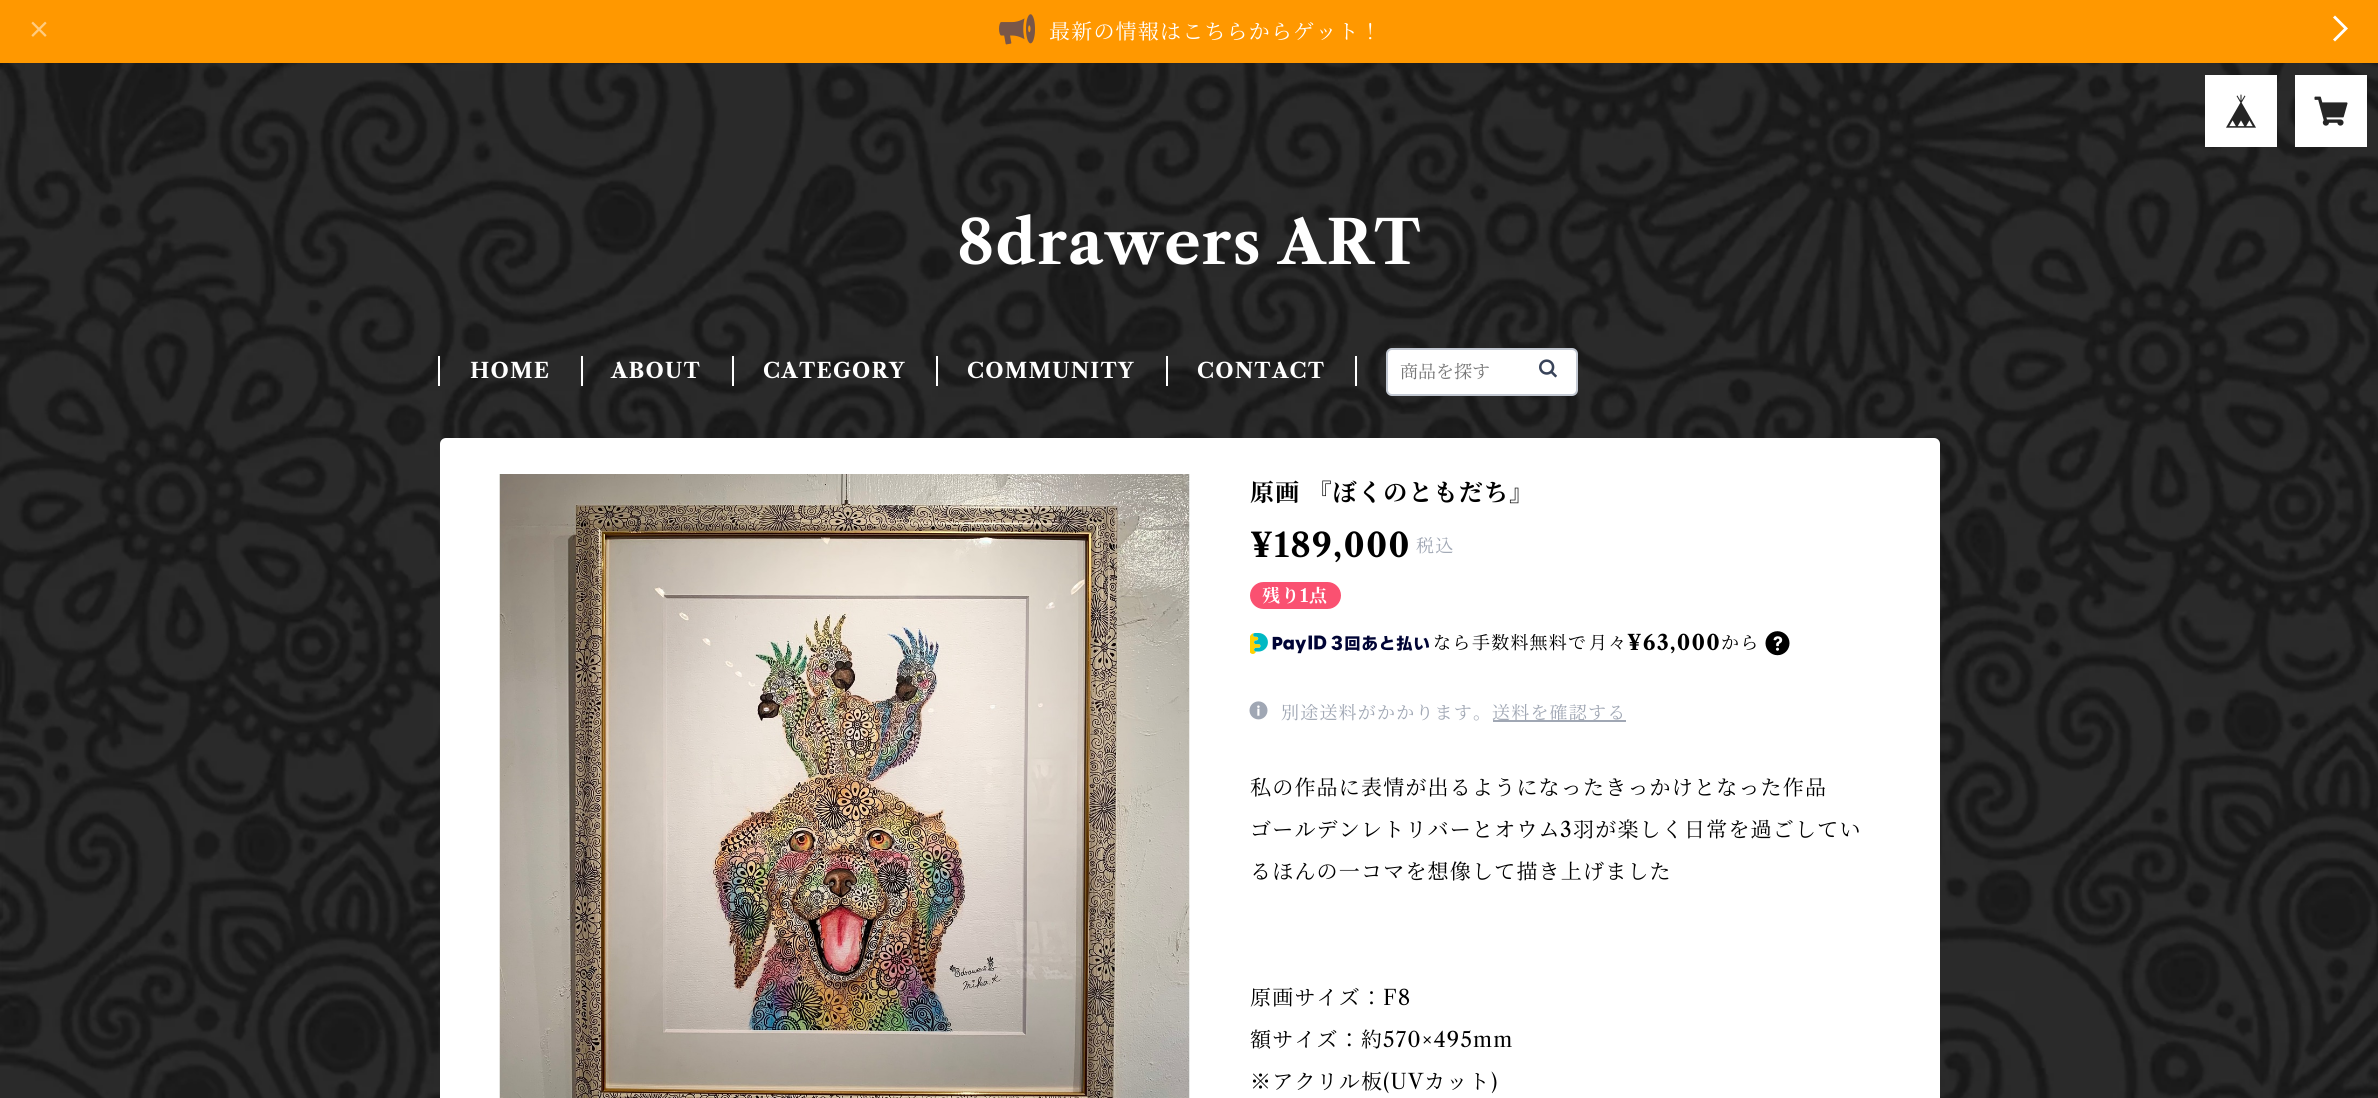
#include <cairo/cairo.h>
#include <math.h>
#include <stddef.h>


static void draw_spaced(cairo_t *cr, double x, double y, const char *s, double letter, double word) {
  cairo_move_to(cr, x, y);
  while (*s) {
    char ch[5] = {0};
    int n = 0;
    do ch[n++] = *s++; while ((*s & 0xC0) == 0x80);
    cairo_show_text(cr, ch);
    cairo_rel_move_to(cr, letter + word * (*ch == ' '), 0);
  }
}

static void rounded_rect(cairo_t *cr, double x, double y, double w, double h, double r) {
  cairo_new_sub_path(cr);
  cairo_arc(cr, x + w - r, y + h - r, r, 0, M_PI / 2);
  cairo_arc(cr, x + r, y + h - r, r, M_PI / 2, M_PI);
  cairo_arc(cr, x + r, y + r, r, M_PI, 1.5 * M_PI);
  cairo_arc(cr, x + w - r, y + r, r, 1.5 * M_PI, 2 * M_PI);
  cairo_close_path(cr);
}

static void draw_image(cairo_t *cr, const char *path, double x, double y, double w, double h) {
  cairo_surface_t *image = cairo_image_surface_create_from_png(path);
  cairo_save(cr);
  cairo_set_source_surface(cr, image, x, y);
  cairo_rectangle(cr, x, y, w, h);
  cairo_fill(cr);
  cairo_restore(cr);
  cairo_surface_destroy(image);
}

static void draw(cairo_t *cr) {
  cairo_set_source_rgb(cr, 1, 1, 1);
  cairo_paint(cr);
  draw_image(cr, "images/1.png", 0, 63, 2378, 1035);
  cairo_set_source_rgb(cr, 1, 152 / 255.0, 0);
  cairo_rectangle(cr, 0, 0, 2378, 63);
  cairo_fill(cr);
  draw_image(cr, "images/2.png", 31, 21, 16, 16);
  draw_image(cr, "images/3.png", 999, 14, 36, 31);
  cairo_set_source_rgb(cr, 1, 1, 1);
  cairo_new_path(cr);
  cairo_move_to(cr, 2344, 28.5);
  cairo_line_to(cr, 2333, 17.5);
  cairo_line_to(cr, 2335, 15.5);
  cairo_line_to(cr, 2348, 28.5);
  cairo_line_to(cr, 2335, 41.5);
  cairo_line_to(cr, 2333, 39.5);
  cairo_close_path(cr);
  cairo_fill(cr);
  cairo_rectangle(cr, 2205, 75, 72, 72);
  cairo_fill(cr);
  draw_image(cr, "images/4.png", 2226, 94, 30, 34);
  cairo_rectangle(cr, 2295, 75, 72, 72);
  cairo_fill(cr);
  draw_image(cr, "images/5.png", 2314, 96, 34, 30);
  cairo_rectangle(cr, 581, 356, 2, 30);
  cairo_fill(cr);
  cairo_rectangle(cr, 438, 356, 2, 30);
  cairo_fill(cr);
  cairo_rectangle(cr, 732, 356, 2, 30);
  cairo_fill(cr);
  cairo_rectangle(cr, 936, 356, 2, 30);
  cairo_fill(cr);
  cairo_rectangle(cr, 1166, 356, 2, 30);
  cairo_fill(cr);
  cairo_rectangle(cr, 1355, 356, 2, 30);
  cairo_fill(cr);
  rounded_rect(cr, 1387, 349, 190, 46, 5);
  cairo_fill_preserve(cr);
  cairo_set_source_rgb(cr, 194 / 255.0, 200 / 255.0, 210 / 255.0);
  cairo_stroke(cr);
  draw_image(cr, "images/6.png", 1539, 359, 18, 19);
  cairo_set_source_rgb(cr, 1, 1, 1);
  rounded_rect(cr, 440, 438, 1500, 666, 6);
  cairo_fill(cr);
  draw_image(cr, "images/7.png", 499, 474, 691, 624);
  cairo_set_source_rgb(cr, 250 / 255.0, 81 / 255.0, 113 / 255.0);
  rounded_rect(cr, 1250, 582, 91, 27, 13.5);
  cairo_fill(cr);
  draw_image(cr, "images/8.png", 1250, 633, 180, 21);
  draw_image(cr, "images/9.png", 1765, 631, 25, 25);
  draw_image(cr, "images/10.png", 1249, 701, 19, 19);
  cairo_set_source_rgb(cr, 160 / 255.0, 167 / 255.0, 180 / 255.0);
  cairo_rectangle(cr, 1493, 720, 133, 2);
  cairo_fill(cr);
  cairo_select_font_face(cr, "Noto Serif JP", CAIRO_FONT_SLANT_NORMAL, CAIRO_FONT_WEIGHT_NORMAL);
  cairo_set_font_size(cr, 21);
  cairo_set_source_rgb(cr, 1, 1, 1);
  draw_spaced(cr, 1049, 39, "最新の情報はこちらからゲット！", 1.2, 0);
  cairo_select_font_face(cr, "Libre Caslon Text", CAIRO_FONT_SLANT_NORMAL, CAIRO_FONT_WEIGHT_BOLD);
  cairo_set_font_size(cr, 60);
  draw_spaced(cr, 957, 264, "8drawers ART", 1.2, 0);
  cairo_set_font_size(cr, 21);
  draw_spaced(cr, 470, 378, "HOME", 1.2, 0);
  draw_spaced(cr, 611, 378, "ABOUT", 1.2, 0);
  draw_spaced(cr, 763, 378, "CATEGORY", 1.2, 0);
  draw_spaced(cr, 967, 378, "COMMUNITY", 1.2, 0);
  draw_spaced(cr, 1197, 378, "CONTACT", 1.2, 0);
  cairo_select_font_face(cr, "Noto Serif JP", CAIRO_FONT_SLANT_NORMAL, CAIRO_FONT_WEIGHT_NORMAL);
  cairo_set_font_size(cr, 18);
  cairo_set_source_rgb(cr, 117 / 255.0, 117 / 255.0, 117 / 255.0);
  cairo_move_to(cr, 1400, 378);
  cairo_show_text(cr, "商品を探す");
  cairo_select_font_face(cr, "Noto Serif JP", CAIRO_FONT_SLANT_NORMAL, CAIRO_FONT_WEIGHT_BOLD);
  cairo_set_font_size(cr, 24);
  cairo_set_source_rgb(cr, 0, 0, 0);
  draw_spaced(cr, 1250, 501, "原画 『ぼくのともだち』", 1.2, 0);
  cairo_select_font_face(cr, "Libre Caslon Text", CAIRO_FONT_SLANT_NORMAL, CAIRO_FONT_WEIGHT_BOLD);
  cairo_set_font_size(cr, 33);
  draw_spaced(cr, 1250, 557, "¥189,000", 1.2, 0);
  cairo_select_font_face(cr, "Noto Serif JP", CAIRO_FONT_SLANT_NORMAL, CAIRO_FONT_WEIGHT_NORMAL);
  cairo_set_font_size(cr, 18);
  cairo_set_source_rgb(cr, 160 / 255.0, 167 / 255.0, 180 / 255.0);
  draw_spaced(cr, 1416, 552, "税込", 1.2, 0);
  cairo_select_font_face(cr, "Noto Serif JP", CAIRO_FONT_SLANT_NORMAL, CAIRO_FONT_WEIGHT_BOLD);
  cairo_set_source_rgb(cr, 1, 1, 1);
  draw_spaced(cr, 1262, 602, "残り", 1.2, 0);
  cairo_select_font_face(cr, "Libre Caslon Text", CAIRO_FONT_SLANT_NORMAL, CAIRO_FONT_WEIGHT_BOLD);
  draw_spaced(cr, 1300, 602, "1", 1.2, 0);
  cairo_select_font_face(cr, "Noto Serif JP", CAIRO_FONT_SLANT_NORMAL, CAIRO_FONT_WEIGHT_BOLD);
  draw_spaced(cr, 1309, 602, "点", 1.2, 0);
  cairo_select_font_face(cr, "Noto Serif JP", CAIRO_FONT_SLANT_NORMAL, CAIRO_FONT_WEIGHT_NORMAL);
  cairo_set_source_rgb(cr, 0, 0, 0);
  draw_spaced(cr, 1433, 649, "なら", 1.2, 0);
  draw_spaced(cr, 1472, 649, "手数料無料で", 1.2, 0);
  draw_spaced(cr, 1589, 649, "月々", 1.2, 0);
  cairo_select_font_face(cr, "Libre Caslon Text", CAIRO_FONT_SLANT_NORMAL, CAIRO_FONT_WEIGHT_BOLD);
  cairo_set_font_size(cr, 21);
  draw_spaced(cr, 1627, 650, "¥63,000", 1.2, 0);
  cairo_select_font_face(cr, "Noto Serif JP", CAIRO_FONT_SLANT_NORMAL, CAIRO_FONT_WEIGHT_NORMAL);
  cairo_set_font_size(cr, 18);
  draw_spaced(cr, 1721, 649, "から", 1.2, 0);
  cairo_set_source_rgb(cr, 160 / 255.0, 167 / 255.0, 180 / 255.0);
  draw_spaced(cr, 1281, 719, "別途送料がかかります。", 1.2, 0);
  draw_spaced(cr, 1492, 719, "送料を確認する", 1.2, 0);
  cairo_set_font_size(cr, 21);
  cairo_set_source_rgb(cr, 0, 0, 0);
  draw_spaced(cr, 1250, 795, "私の作品に表情が出るようになったきっかけとなった作品", 1.2, 0);
  draw_spaced(cr, 1250, 837, "ゴールデンレトリバーとオウム", 1.2, 0);
  cairo_select_font_face(cr, "Libre Caslon Text", CAIRO_FONT_SLANT_NORMAL, CAIRO_FONT_WEIGHT_NORMAL);
  draw_spaced(cr, 1560, 837, "3", 1.2, 0);
  cairo_select_font_face(cr, "Noto Serif JP", CAIRO_FONT_SLANT_NORMAL, CAIRO_FONT_WEIGHT_NORMAL);
  draw_spaced(cr, 1573, 837, "羽が楽しく日常を過ごしてい", 1.2, 0);
  draw_spaced(cr, 1250, 879, "るほんの一コマを想像して描き上げました", 1.2, 0);
  draw_spaced(cr, 1250, 1005, "原画サイズ：", 1.2, 0);
  cairo_select_font_face(cr, "Libre Caslon Text", CAIRO_FONT_SLANT_NORMAL, CAIRO_FONT_WEIGHT_NORMAL);
  draw_spaced(cr, 1383, 1005, "F8", 1.2, 0);
  cairo_select_font_face(cr, "Noto Serif JP", CAIRO_FONT_SLANT_NORMAL, CAIRO_FONT_WEIGHT_NORMAL);
  draw_spaced(cr, 1250, 1047, "額サイズ：約", 1.2, 0);
  cairo_select_font_face(cr, "Libre Caslon Text", CAIRO_FONT_SLANT_NORMAL, CAIRO_FONT_WEIGHT_NORMAL);
  draw_spaced(cr, 1383, 1047, "570×495mm", 1.2, 0);
  cairo_select_font_face(cr, "Noto Serif JP", CAIRO_FONT_SLANT_NORMAL, CAIRO_FONT_WEIGHT_NORMAL);
  draw_spaced(cr, 1250, 1089, "※アクリル板", 1.2, 0);
  cairo_select_font_face(cr, "Libre Caslon Text", CAIRO_FONT_SLANT_NORMAL, CAIRO_FONT_WEIGHT_NORMAL);
  draw_spaced(cr, 1383, 1089, "(UV", 1.2, 0);
  cairo_select_font_face(cr, "Noto Serif JP", CAIRO_FONT_SLANT_NORMAL, CAIRO_FONT_WEIGHT_NORMAL);
  draw_spaced(cr, 1424, 1089, "カット", 1.2, 0);
  cairo_select_font_face(cr, "Libre Caslon Text", CAIRO_FONT_SLANT_NORMAL, CAIRO_FONT_WEIGHT_NORMAL);
  draw_spaced(cr, 1491, 1089, ")", 1.2, 0);
}

int main(void) {
  cairo_surface_t *surface = cairo_image_surface_create(CAIRO_FORMAT_RGB24, 2378, 1098);
  cairo_t *cr = cairo_create(surface);
  cairo_font_options_t *options = cairo_font_options_create();
  cairo_font_options_set_hint_metrics(options, CAIRO_HINT_METRICS_OFF);
  cairo_font_options_set_hint_style(options, CAIRO_HINT_STYLE_NONE);
  cairo_set_font_options(cr, options);
  cairo_set_miter_limit(cr, 4);
  draw(cr);
  cairo_surface_write_to_png(surface, "out.png");
  cairo_font_options_destroy(options);
  cairo_destroy(cr);
  cairo_surface_destroy(surface);
  return 0;
}
